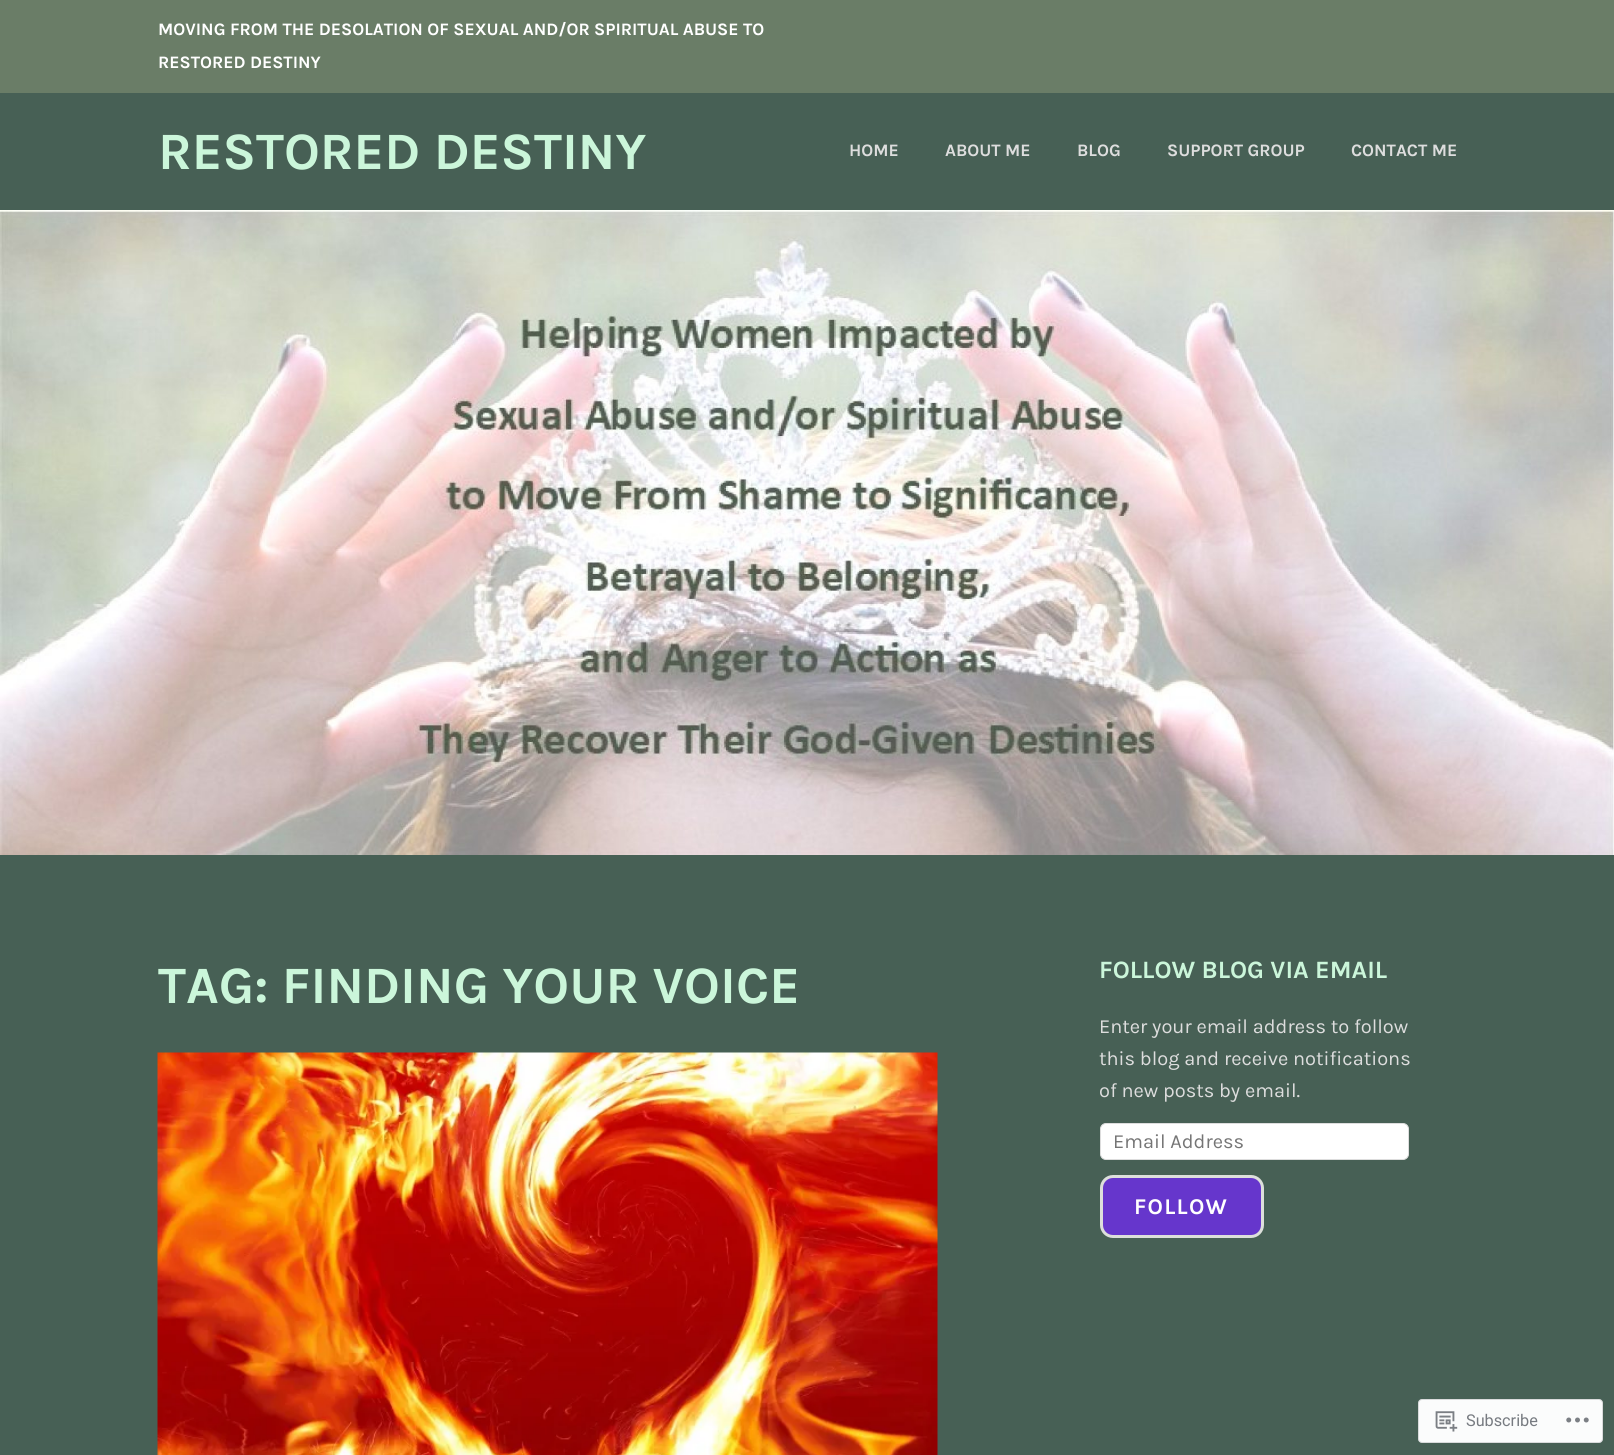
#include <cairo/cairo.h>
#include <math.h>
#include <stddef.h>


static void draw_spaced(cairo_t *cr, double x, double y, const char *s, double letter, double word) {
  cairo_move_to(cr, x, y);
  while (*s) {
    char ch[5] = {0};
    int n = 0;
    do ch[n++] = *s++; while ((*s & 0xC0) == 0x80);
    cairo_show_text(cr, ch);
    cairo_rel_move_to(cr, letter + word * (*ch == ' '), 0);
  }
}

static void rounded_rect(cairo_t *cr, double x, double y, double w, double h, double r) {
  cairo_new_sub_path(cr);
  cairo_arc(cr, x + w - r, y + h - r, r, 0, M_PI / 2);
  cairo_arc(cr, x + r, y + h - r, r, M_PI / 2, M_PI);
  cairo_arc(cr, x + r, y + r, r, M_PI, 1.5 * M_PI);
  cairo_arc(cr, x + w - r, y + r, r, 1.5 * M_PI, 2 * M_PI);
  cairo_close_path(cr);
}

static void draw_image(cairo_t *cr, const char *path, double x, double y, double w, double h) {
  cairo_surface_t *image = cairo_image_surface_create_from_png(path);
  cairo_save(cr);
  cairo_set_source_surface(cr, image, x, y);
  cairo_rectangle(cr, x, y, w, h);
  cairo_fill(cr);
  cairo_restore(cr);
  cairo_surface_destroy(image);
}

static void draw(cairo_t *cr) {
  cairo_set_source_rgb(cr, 71 / 255.0, 96 / 255.0, 85 / 255.0);
  cairo_paint(cr);
  cairo_set_source_rgb(cr, 106 / 255.0, 125 / 255.0, 103 / 255.0);
  cairo_rectangle(cr, 0, 0, 1614, 93);
  cairo_fill(cr);
  draw_image(cr, "images/1.png", 0, 210, 1614, 645);
  draw_image(cr, "images/2.png", 157, 1052, 781, 403);
  cairo_set_source_rgb(cr, 1, 1, 1);
  rounded_rect(cr, 1100.5, 1123.5, 308, 36, 5.5);
  cairo_fill_preserve(cr);
  cairo_set_source_rgb(cr, 221 / 255.0, 221 / 255.0, 221 / 255.0);
  cairo_set_line_width(cr, 1);
  cairo_stroke(cr);
  cairo_set_source_rgb(cr, 102 / 255.0, 54 / 255.0, 204 / 255.0);
  rounded_rect(cr, 1101.5, 1176.5, 161, 60, 11.5);
  cairo_fill_preserve(cr);
  cairo_set_source_rgb(cr, 221 / 255.0, 223 / 255.0, 219 / 255.0);
  cairo_set_line_width(cr, 3);
  cairo_stroke(cr);
  cairo_set_source_rgb(cr, 251 / 255.0, 252 / 255.0, 252 / 255.0);
  rounded_rect(cr, 1418.5, 1399.5, 184, 43, 3.5);
  cairo_fill_preserve(cr);
  cairo_set_source_rgb(cr, 217 / 255.0, 218 / 255.0, 219 / 255.0);
  cairo_set_line_width(cr, 1);
  cairo_stroke(cr);
  draw_image(cr, "images/3.png", 1435, 1411, 23, 21);
  draw_image(cr, "images/4.png", 1566, 1417, 23, 6);
  cairo_select_font_face(cr, "Karla", CAIRO_FONT_SLANT_NORMAL, CAIRO_FONT_WEIGHT_BOLD);
  cairo_set_font_size(cr, 17.5);
  cairo_set_source_rgb(cr, 1, 1, 1);
  cairo_move_to(cr, 158, 35);
  cairo_show_text(cr, "MOVING FROM THE DESOLATION OF SEXUAL AND/OR SPIRITUAL ABUSE TO");
  cairo_move_to(cr, 158, 68);
  cairo_show_text(cr, "RESTORED DESTINY");
  cairo_set_font_size(cr, 52.5);
  cairo_set_source_rgb(cr, 203 / 255.0, 246 / 255.0, 218 / 255.0);
  cairo_move_to(cr, 158, 169);
  cairo_show_text(cr, "RESTORED DESTINY");
  cairo_set_font_size(cr, 17.5);
  cairo_set_source_rgb(cr, 221 / 255.0, 221 / 255.0, 221 / 255.0);
  cairo_move_to(cr, 849, 156);
  cairo_show_text(cr, "HOME");
  cairo_move_to(cr, 945, 156);
  cairo_show_text(cr, "ABOUT ME");
  cairo_move_to(cr, 1077, 156);
  cairo_show_text(cr, "BLOG");
  cairo_move_to(cr, 1167, 156);
  cairo_show_text(cr, "SUPPORT GROUP");
  cairo_move_to(cr, 1351, 156);
  cairo_show_text(cr, "CONTACT ME");
  cairo_set_font_size(cr, 52.5);
  cairo_set_source_rgb(cr, 203 / 255.0, 246 / 255.0, 218 / 255.0);
  cairo_move_to(cr, 158, 1003);
  cairo_show_text(cr, "TAG: FINDING YOUR VOICE");
  cairo_set_font_size(cr, 25);
  cairo_move_to(cr, 1099, 978);
  cairo_show_text(cr, "FOLLOW BLOG VIA EMAIL");
  cairo_select_font_face(cr, "Karla", CAIRO_FONT_SLANT_NORMAL, CAIRO_FONT_WEIGHT_NORMAL);
  cairo_set_font_size(cr, 20);
  cairo_set_source_rgb(cr, 221 / 255.0, 221 / 255.0, 221 / 255.0);
  cairo_move_to(cr, 1099, 1033);
  cairo_show_text(cr, "Enter your email address to follow");
  cairo_move_to(cr, 1099, 1065);
  cairo_show_text(cr, "this blog and receive notifications");
  cairo_move_to(cr, 1099, 1097);
  cairo_show_text(cr, "of new posts by email.");
  cairo_set_source_rgb(cr, 117 / 255.0, 117 / 255.0, 117 / 255.0);
  cairo_move_to(cr, 1113, 1148);
  cairo_show_text(cr, "Email Address");
  cairo_select_font_face(cr, "Karla", CAIRO_FONT_SLANT_NORMAL, CAIRO_FONT_WEIGHT_BOLD);
  cairo_set_font_size(cr, 22.5);
  cairo_set_source_rgb(cr, 1, 1, 1);
  draw_spaced(cr, 1134, 1214, "FOLLOW", 1.25, 0);
  cairo_select_font_face(cr, "Roboto", CAIRO_FONT_SLANT_NORMAL, CAIRO_FONT_WEIGHT_NORMAL);
  cairo_set_font_size(cr, 16.25);
  cairo_set_source_rgb(cr, 119 / 255.0, 123 / 255.0, 129 / 255.0);
  cairo_move_to(cr, 1466, 1426);
  cairo_show_text(cr, "Subscribe");
}

int main(void) {
  cairo_surface_t *surface = cairo_image_surface_create(CAIRO_FORMAT_RGB24, 1614, 1455);
  cairo_t *cr = cairo_create(surface);
  cairo_font_options_t *options = cairo_font_options_create();
  cairo_font_options_set_hint_metrics(options, CAIRO_HINT_METRICS_OFF);
  cairo_font_options_set_hint_style(options, CAIRO_HINT_STYLE_NONE);
  cairo_set_font_options(cr, options);
  cairo_set_miter_limit(cr, 4);
  draw(cr);
  cairo_surface_write_to_png(surface, "out.png");
  cairo_font_options_destroy(options);
  cairo_destroy(cr);
  cairo_surface_destroy(surface);
  return 0;
}
